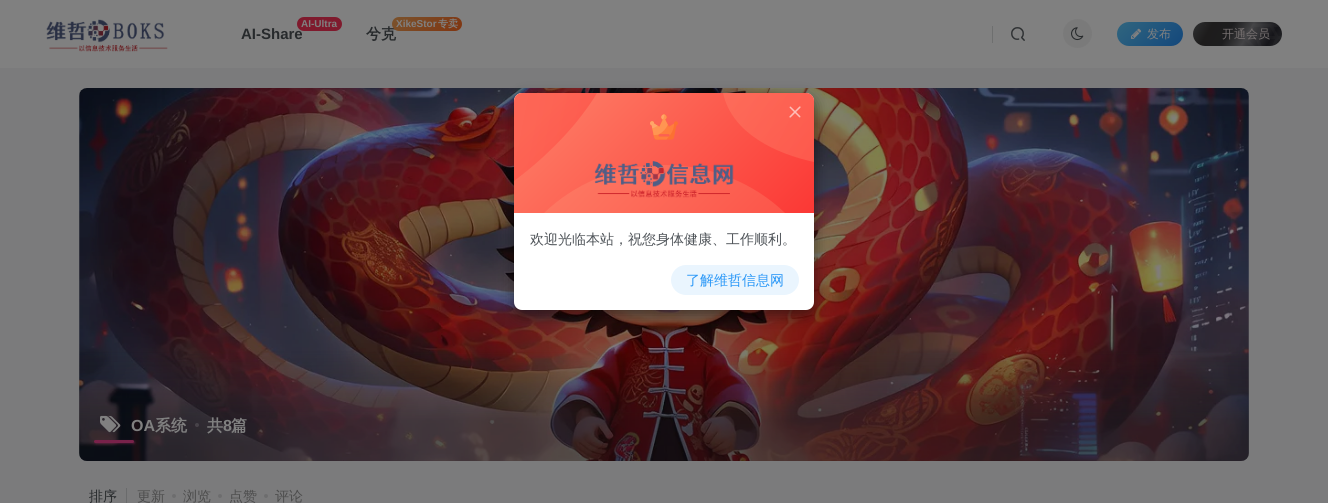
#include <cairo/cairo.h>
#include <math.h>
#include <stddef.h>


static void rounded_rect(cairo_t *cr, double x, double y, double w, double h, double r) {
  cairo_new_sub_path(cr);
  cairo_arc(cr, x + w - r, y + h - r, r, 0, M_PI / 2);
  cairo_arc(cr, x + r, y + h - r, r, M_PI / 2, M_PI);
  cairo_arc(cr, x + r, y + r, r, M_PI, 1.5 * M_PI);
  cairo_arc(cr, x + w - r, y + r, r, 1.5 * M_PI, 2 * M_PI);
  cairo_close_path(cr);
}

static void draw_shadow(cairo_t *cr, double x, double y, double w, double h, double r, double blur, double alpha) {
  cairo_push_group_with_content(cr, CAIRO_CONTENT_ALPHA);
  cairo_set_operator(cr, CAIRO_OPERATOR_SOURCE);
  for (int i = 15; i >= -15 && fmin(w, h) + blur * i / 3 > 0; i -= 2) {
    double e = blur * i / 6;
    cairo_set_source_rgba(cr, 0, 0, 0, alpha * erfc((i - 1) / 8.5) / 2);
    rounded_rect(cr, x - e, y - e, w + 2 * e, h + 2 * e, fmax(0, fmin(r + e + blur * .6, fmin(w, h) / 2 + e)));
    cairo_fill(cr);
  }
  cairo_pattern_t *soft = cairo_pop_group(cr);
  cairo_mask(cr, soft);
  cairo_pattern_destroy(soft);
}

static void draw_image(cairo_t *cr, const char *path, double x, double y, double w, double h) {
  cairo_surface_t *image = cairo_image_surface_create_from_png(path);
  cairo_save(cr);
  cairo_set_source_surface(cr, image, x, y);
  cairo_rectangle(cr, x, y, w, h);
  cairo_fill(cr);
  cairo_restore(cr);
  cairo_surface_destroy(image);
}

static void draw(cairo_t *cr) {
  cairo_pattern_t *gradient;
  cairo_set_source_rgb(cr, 123 / 255.0, 123 / 255.0, 124 / 255.0);
  cairo_paint(cr);
  cairo_set_source_rgb(cr, 128 / 255.0, 128 / 255.0, 128 / 255.0);
  cairo_rectangle(cr, 0, 0, 1328, 68);
  cairo_fill(cr);
  draw_image(cr, "images/1.png", 46, 19, 122, 33);
  cairo_set_source_rgb(cr, 110 / 255.0, 111 / 255.0, 111 / 255.0);
  cairo_rectangle(cr, 992, 26, 1, 17);
  cairo_fill(cr);
  draw_image(cr, "images/2.png", 1011, 27, 14, 14);
  cairo_set_source_rgb(cr, 122 / 255.0, 122 / 255.0, 122 / 255.0);
  cairo_arc(cr, 1077.5, 33.5, 14.5, 0, 2 * M_PI);
  cairo_fill(cr);
  draw_image(cr, "images/3.png", 1071, 27, 13, 14);
  gradient = cairo_pattern_create_linear(1128, 12, 1173, 57);
  cairo_pattern_add_color_stop_rgba(gradient, 0.1, 45 / 255.0, 98 / 255.0, 126 / 255.0, 1);
  cairo_pattern_add_color_stop_rgba(gradient, 1, 19 / 255.0, 71 / 255.0, 124 / 255.0, 1);
  cairo_set_source(cr, gradient);
  cairo_pattern_destroy(gradient);
  rounded_rect(cr, 1117, 22, 66, 24, 12);
  cairo_fill(cr);
  draw_image(cr, "images/4.png", 1131, 28, 11, 11);
  gradient = cairo_pattern_create_linear(1276, 56, 1199, 12);
  cairo_pattern_add_color_stop_rgba(gradient, 0, 38 / 255.0, 39 / 255.0, 41 / 255.0, 1);
  cairo_pattern_add_color_stop_rgba(gradient, 0.15, 21 / 255.0, 21 / 255.0, 25 / 255.0, 1);
  cairo_pattern_add_color_stop_rgba(gradient, 0.4, 67 / 255.0, 67 / 255.0, 69 / 255.0, 1);
  cairo_pattern_add_color_stop_rgba(gradient, 0.6, 29 / 255.0, 29 / 255.0, 30 / 255.0, 1);
  cairo_pattern_add_color_stop_rgba(gradient, 0.8, 29 / 255.0, 28 / 255.0, 28 / 255.0, 1);
  cairo_pattern_add_color_stop_rgba(gradient, 1, 47 / 255.0, 48 / 255.0, 49 / 255.0, 1);
  cairo_set_source(cr, gradient);
  cairo_pattern_destroy(gradient);
  rounded_rect(cr, 1193, 22, 89, 24, 12);
  cairo_fill(cr);
  cairo_set_source_rgb(cr, 39 / 255.0, 36 / 255.0, 35 / 255.0);
  cairo_rectangle(cr, 1205, 25, 1, 1);
  cairo_fill(cr);
  cairo_set_source_rgb(cr, 128 / 255.0, 128 / 255.0, 128 / 255.0);
  rounded_rect(cr, 79, 88, 1170, 373, 8);
  cairo_fill(cr);
  draw_image(cr, "images/9.png", 79, 88, 1170, 373);
  gradient = cairo_pattern_create_linear(664, 461, 664, 88);
  cairo_pattern_add_color_stop_rgba(gradient, 0.11, 15 / 255.0, 21 / 255.0, 25 / 255.0, 0.4);
  cairo_pattern_add_color_stop_rgba(gradient, 0.3, 15 / 255.0, 21 / 255.0, 25 / 255.0, 0);
  cairo_set_source(cr, gradient);
  cairo_pattern_destroy(gradient);
  rounded_rect(cr, 79, 88, 1170, 373, 8);
  cairo_fill(cr);
  cairo_set_source_rgb(cr, 0, 0, 0);
  draw_shadow(cr, 514, 98, 300, 217, 8, 7.5, 0.5);
  cairo_set_source_rgb(cr, 1, 1, 1);
  rounded_rect(cr, 514, 93, 300, 217, 8);
  cairo_fill(cr);
  gradient = cairo_pattern_create_linear(574, 33, 814, 273);
  cairo_pattern_add_color_stop_rgba(gradient, 0.1, 253 / 255.0, 122 / 255.0, 100 / 255.0, 1);
  cairo_pattern_add_color_stop_rgba(gradient, 1, 251 / 255.0, 45 / 255.0, 45 / 255.0, 1);
  cairo_set_source(cr, gradient);
  cairo_pattern_destroy(gradient);
  cairo_new_path(cr);
  cairo_move_to(cr, 522, 93);
  cairo_line_to(cr, 806, 93);
  cairo_curve_to(cr, 810.5, 93, 814, 96.5, 814, 101);
  cairo_line_to(cr, 814, 213);
  cairo_line_to(cr, 514, 213);
  cairo_line_to(cr, 514, 101);
  cairo_curve_to(cr, 514, 96.5, 517.5, 93, 522, 93);
  cairo_close_path(cr);
  cairo_fill(cr);
  gradient = cairo_pattern_create_linear(511, 157, 818, 463);
  cairo_pattern_add_color_stop_rgba(gradient, 0.1, 253 / 255.0, 122 / 255.0, 100 / 255.0, 1);
  cairo_pattern_add_color_stop_rgba(gradient, 1, 251 / 255.0, 45 / 255.0, 45 / 255.0, 1);
  cairo_set_source(cr, gradient);
  cairo_pattern_destroy(gradient);
  cairo_new_path(cr);
  cairo_move_to(cr, 664, 165);
  cairo_curve_to(cr, 712, 165, 755, 184, 785, 213);
  cairo_line_to(cr, 544, 213);
  cairo_curve_to(cr, 574, 184, 617, 165, 664, 165);
  cairo_close_path(cr);
  cairo_fill(cr);
  gradient = cairo_pattern_create_linear(228, 60, 655, 143);
  cairo_pattern_add_color_stop_rgba(gradient, 0.1, 253 / 255.0, 122 / 255.0, 100 / 255.0, 0.4);
  cairo_pattern_add_color_stop_rgba(gradient, 1, 251 / 255.0, 45 / 255.0, 45 / 255.0, 0.4);
  cairo_set_source(cr, gradient);
  cairo_pattern_destroy(gradient);
  cairo_new_path(cr);
  cairo_move_to(cr, 522, 93);
  cairo_line_to(cr, 597, 93);
  cairo_curve_to(cr, 579, 123, 550, 154, 514, 181);
  cairo_line_to(cr, 514, 101);
  cairo_curve_to(cr, 514, 97, 518, 93, 522, 93);
  cairo_close_path(cr);
  cairo_fill(cr);
  gradient = cairo_pattern_create_linear(735, -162, 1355, 141);
  cairo_pattern_add_color_stop_rgba(gradient, 0.1, 253 / 255.0, 122 / 255.0, 100 / 255.0, 0.6);
  cairo_pattern_add_color_stop_rgba(gradient, 1, 251 / 255.0, 45 / 255.0, 45 / 255.0, 0.6);
  cairo_set_source(cr, gradient);
  cairo_pattern_destroy(gradient);
  cairo_new_path(cr);
  cairo_move_to(cr, 814, 162);
  cairo_curve_to(cr, 777, 154, 732, 134, 723, 93);
  cairo_line_to(cr, 806, 93);
  cairo_curve_to(cr, 810, 93, 814, 97, 814, 101);
  cairo_close_path(cr);
  cairo_fill(cr);
  draw_image(cr, "images/6.png", 789, 106, 12, 12);
  draw_image(cr, "images/7.png", 650, 114, 28, 26);
  draw_image(cr, "images/8.png", 594, 161, 140, 37);
  cairo_set_source_rgb(cr, 234 / 255.0, 245 / 255.0, 254 / 255.0);
  rounded_rect(cr, 671, 265, 128, 30, 15);
  cairo_fill(cr);
  draw_image(cr, "images/10.png", 100, 415, 21, 18);
  cairo_set_source_rgb(cr, 71 / 255.0, 67 / 255.0, 73 / 255.0);
  cairo_arc(cr, 197, 425, 2, 0, 2 * M_PI);
  cairo_fill(cr);
  cairo_set_source_rgb(cr, 120 / 255.0, 34 / 255.0, 74 / 255.0);
  draw_shadow(cr, 96, 442, 38, 1, 0.5, 1.5, 1);
  cairo_set_source_rgb(cr, 120 / 255.0, 34 / 255.0, 74 / 255.0);
  rounded_rect(cr, 94, 440, 40, 3, 1.5);
  cairo_fill(cr);
  cairo_set_source_rgb(cr, 106 / 255.0, 107 / 255.0, 108 / 255.0);
  cairo_rectangle(cr, 126, 488, 1, 15);
  cairo_fill(cr);
  cairo_set_source_rgb(cr, 109 / 255.0, 109 / 255.0, 110 / 255.0);
  cairo_arc(cr, 174, 496, 2, 0, 2 * M_PI);
  cairo_fill(cr);
  cairo_arc(cr, 220, 496, 2, 0, 2 * M_PI);
  cairo_fill(cr);
  cairo_arc(cr, 266, 496, 2, 0, 2 * M_PI);
  cairo_fill(cr);
  cairo_select_font_face(cr, "Liberation Sans", CAIRO_FONT_SLANT_NORMAL, CAIRO_FONT_WEIGHT_BOLD);
  cairo_set_font_size(cr, 15);
  cairo_set_source_rgb(cr, 39 / 255.0, 42 / 255.0, 44 / 255.0);
  cairo_move_to(cr, 241, 39);
  cairo_show_text(cr, "AI-Share");
  cairo_set_source_rgb(cr, 127 / 255.0, 26 / 255.0, 45 / 255.0);
  rounded_rect(cr, 297, 17, 45, 14, 7);
  cairo_fill(cr);
  cairo_set_font_size(cr, 10);
  cairo_set_source_rgb(cr, 128 / 255.0, 128 / 255.0, 128 / 255.0);
  cairo_move_to(cr, 301, 27);
  cairo_show_text(cr, "AI-Ultra");
  cairo_select_font_face(cr, "WenQuanYi Zen Hei", CAIRO_FONT_SLANT_NORMAL, CAIRO_FONT_WEIGHT_BOLD);
  cairo_set_font_size(cr, 15);
  cairo_set_source_rgb(cr, 39 / 255.0, 42 / 255.0, 44 / 255.0);
  cairo_move_to(cr, 366, 39);
  cairo_show_text(cr, "兮克");
  gradient = cairo_pattern_create_linear(406, 3, 448, 45);
  cairo_pattern_add_color_stop_rgba(gradient, 0.1, 123 / 255.0, 80 / 255.0, 42 / 255.0, 1);
  cairo_pattern_add_color_stop_rgba(gradient, 1, 128 / 255.0, 53 / 255.0, 17 / 255.0, 1);
  cairo_set_source(cr, gradient);
  cairo_pattern_destroy(gradient);
  rounded_rect(cr, 392, 17, 70, 14, 7);
  cairo_fill(cr);
  cairo_select_font_face(cr, "Liberation Sans", CAIRO_FONT_SLANT_NORMAL, CAIRO_FONT_WEIGHT_BOLD);
  cairo_set_font_size(cr, 10);
  cairo_set_source_rgb(cr, 128 / 255.0, 128 / 255.0, 128 / 255.0);
  cairo_move_to(cr, 396, 27);
  cairo_show_text(cr, "XikeStor");
  cairo_select_font_face(cr, "WenQuanYi Zen Hei", CAIRO_FONT_SLANT_NORMAL, CAIRO_FONT_WEIGHT_BOLD);
  cairo_move_to(cr, 438, 27);
  cairo_show_text(cr, "专卖");
  cairo_select_font_face(cr, "WenQuanYi Zen Hei Medium", CAIRO_FONT_SLANT_NORMAL, CAIRO_FONT_WEIGHT_NORMAL);
  cairo_set_font_size(cr, 12);
  cairo_move_to(cr, 1147, 38);
  cairo_show_text(cr, "发布");
  cairo_set_source_rgb(cr, 118 / 255.0, 112 / 255.0, 112 / 255.0);
  cairo_move_to(cr, 1222, 38);
  cairo_show_text(cr, "开通会员");
  draw_image(cr, "images/5.png", 1243, 24, 39, 22);
  cairo_set_font_size(cr, 14);
  cairo_set_source_rgb(cr, 78 / 255.0, 83 / 255.0, 88 / 255.0);
  cairo_move_to(cr, 530, 244);
  cairo_show_text(cr, "欢迎光临本站，祝您身体健康、工作顺利。");
  cairo_set_source_rgb(cr, 41 / 255.0, 151 / 255.0, 247 / 255.0);
  cairo_move_to(cr, 686, 285);
  cairo_show_text(cr, "了解维哲信息网");
  cairo_select_font_face(cr, "Liberation Sans", CAIRO_FONT_SLANT_NORMAL, CAIRO_FONT_WEIGHT_BOLD);
  cairo_set_font_size(cr, 16);
  cairo_set_source_rgb(cr, 128 / 255.0, 128 / 255.0, 128 / 255.0);
  cairo_move_to(cr, 131, 431);
  cairo_show_text(cr, "OA");
  cairo_select_font_face(cr, "WenQuanYi Zen Hei", CAIRO_FONT_SLANT_NORMAL, CAIRO_FONT_WEIGHT_BOLD);
  cairo_move_to(cr, 155, 431);
  cairo_show_text(cr, "系统");
  cairo_move_to(cr, 207, 431);
  cairo_show_text(cr, "共");
  cairo_select_font_face(cr, "Liberation Sans", CAIRO_FONT_SLANT_NORMAL, CAIRO_FONT_WEIGHT_BOLD);
  cairo_move_to(cr, 223, 431);
  cairo_show_text(cr, "8");
  cairo_select_font_face(cr, "WenQuanYi Zen Hei", CAIRO_FONT_SLANT_NORMAL, CAIRO_FONT_WEIGHT_BOLD);
  cairo_move_to(cr, 231, 431);
  cairo_show_text(cr, "篇");
  cairo_select_font_face(cr, "WenQuanYi Zen Hei Medium", CAIRO_FONT_SLANT_NORMAL, CAIRO_FONT_WEIGHT_NORMAL);
  cairo_set_font_size(cr, 14);
  cairo_set_source_rgb(cr, 39 / 255.0, 42 / 255.0, 44 / 255.0);
  cairo_move_to(cr, 89, 501);
  cairo_show_text(cr, "排序");
  cairo_set_source_rgb(cr, 77 / 255.0, 77 / 255.0, 77 / 255.0);
  cairo_move_to(cr, 137, 501);
  cairo_show_text(cr, "更新");
  cairo_move_to(cr, 183, 501);
  cairo_show_text(cr, "浏览");
  cairo_move_to(cr, 229, 501);
  cairo_show_text(cr, "点赞");
  cairo_move_to(cr, 275, 501);
  cairo_show_text(cr, "评论");
}

int main(void) {
  cairo_surface_t *surface = cairo_image_surface_create(CAIRO_FORMAT_RGB24, 1328, 503);
  cairo_t *cr = cairo_create(surface);
  cairo_font_options_t *options = cairo_font_options_create();
  cairo_font_options_set_hint_metrics(options, CAIRO_HINT_METRICS_OFF);
  cairo_font_options_set_hint_style(options, CAIRO_HINT_STYLE_NONE);
  cairo_set_font_options(cr, options);
  cairo_set_miter_limit(cr, 4);
  draw(cr);
  cairo_surface_write_to_png(surface, "out.png");
  cairo_font_options_destroy(options);
  cairo_destroy(cr);
  cairo_surface_destroy(surface);
  return 0;
}
